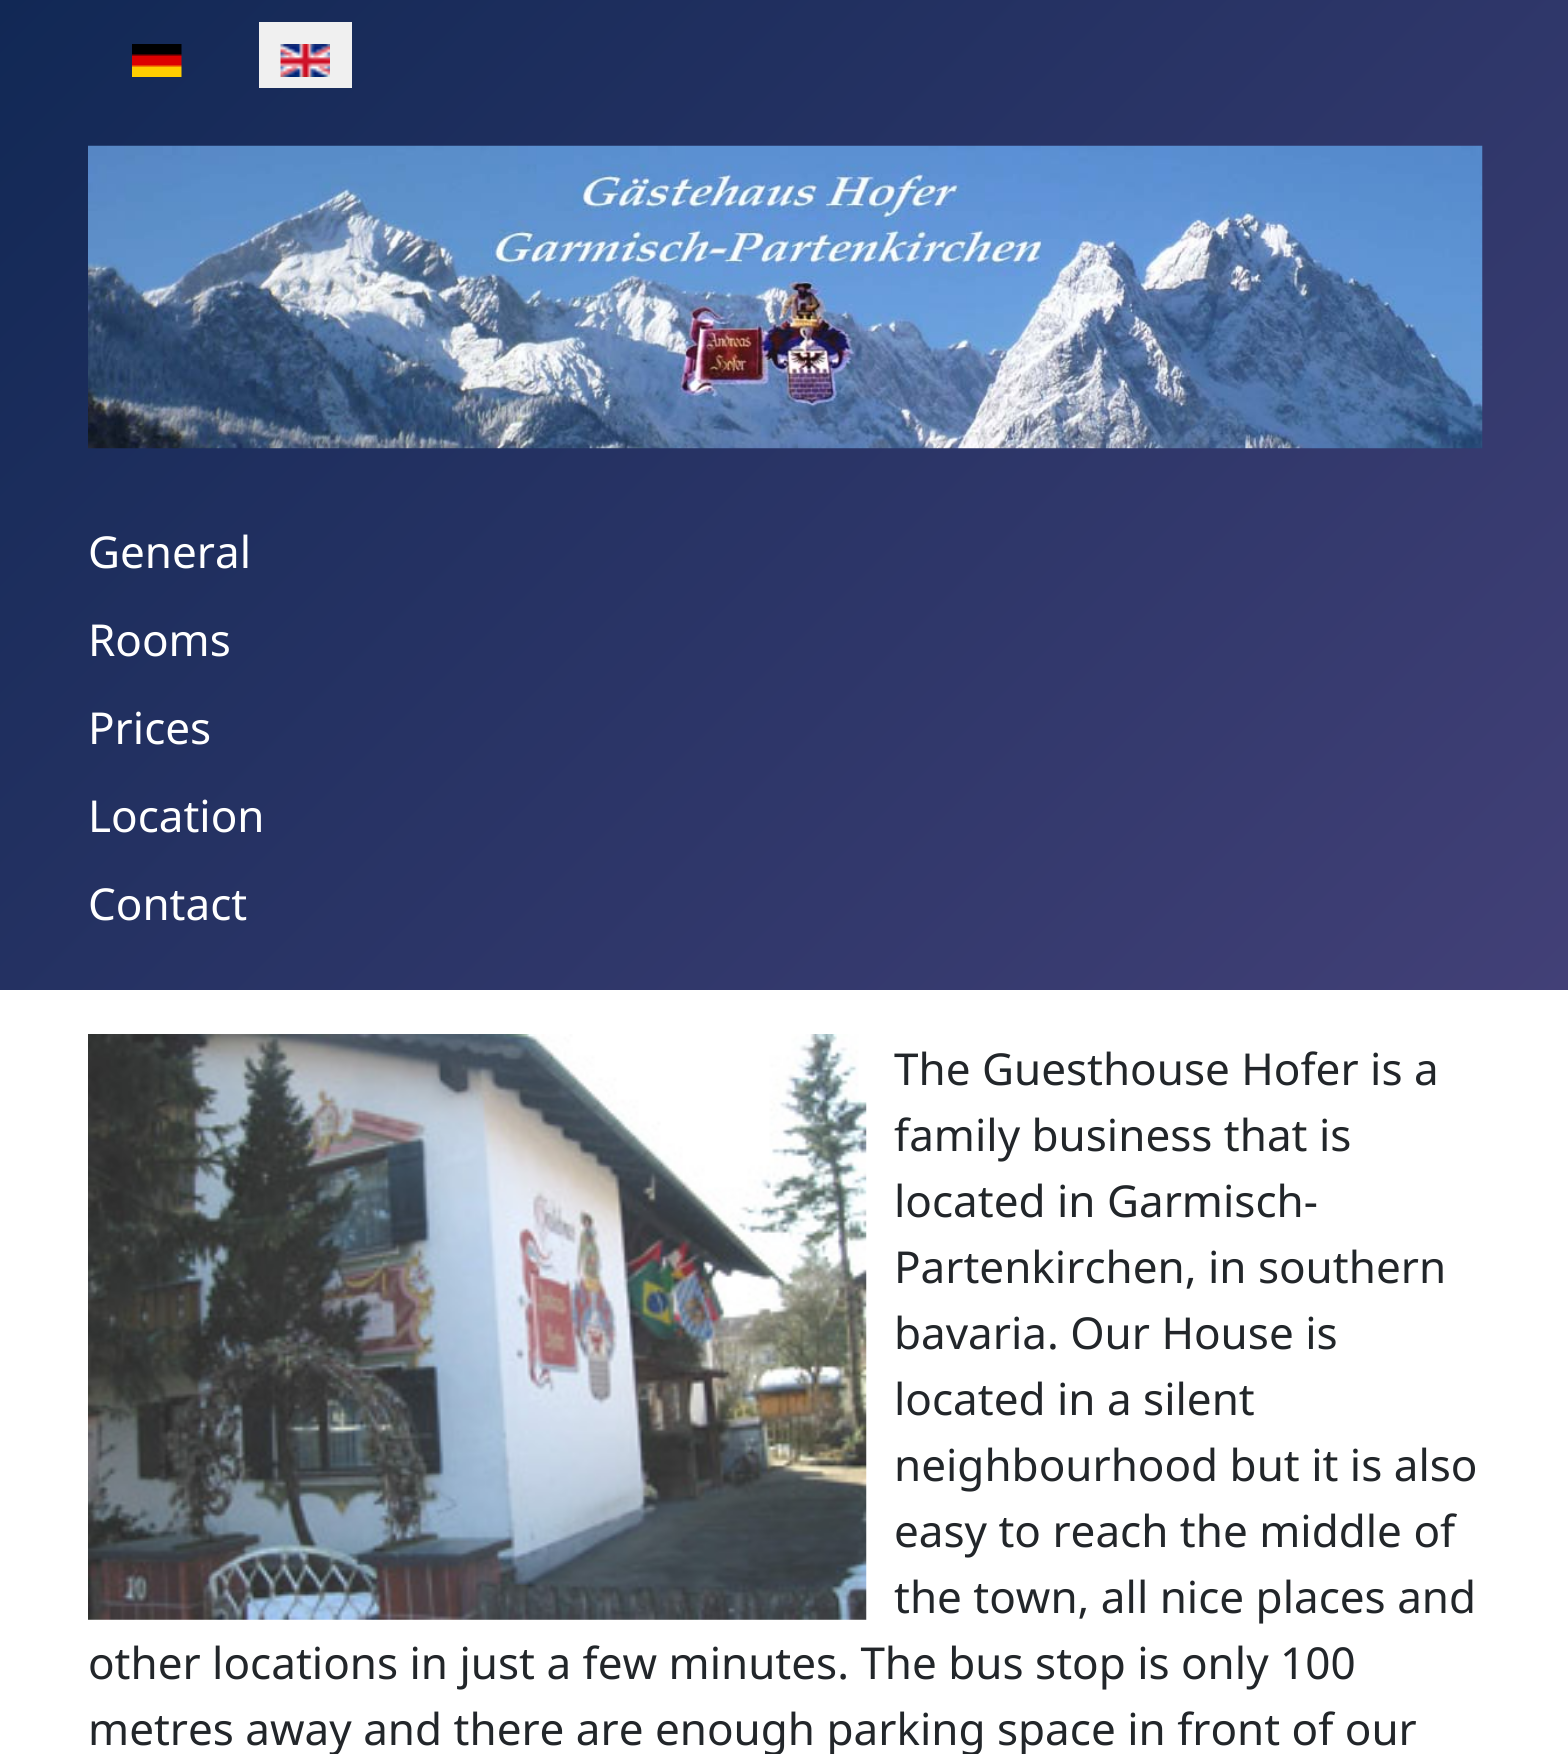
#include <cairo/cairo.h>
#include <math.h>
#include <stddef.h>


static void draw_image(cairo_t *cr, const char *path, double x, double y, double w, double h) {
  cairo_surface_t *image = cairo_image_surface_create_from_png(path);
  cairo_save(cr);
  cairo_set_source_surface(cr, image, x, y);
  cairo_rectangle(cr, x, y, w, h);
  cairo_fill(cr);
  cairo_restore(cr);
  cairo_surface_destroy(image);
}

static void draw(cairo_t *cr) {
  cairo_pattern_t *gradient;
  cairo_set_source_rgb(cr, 1, 1, 1);
  cairo_paint(cr);
  gradient = cairo_pattern_create_linear(145, -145, 1425, 1135);
  cairo_pattern_add_color_stop_rgba(gradient, 0, 17 / 255.0, 40 / 255.0, 85 / 255.0, 1);
  cairo_pattern_add_color_stop_rgba(gradient, 1, 66 / 255.0, 64 / 255.0, 119 / 255.0, 1);
  cairo_set_source(cr, gradient);
  cairo_pattern_destroy(gradient);
  cairo_rectangle(cr, 0, 0, 1568, 990);
  cairo_fill(cr);
  draw_image(cr, "images/1.png", 132, 44, 50, 33);
  cairo_set_source_rgb(cr, 240 / 255.0, 240 / 255.0, 240 / 255.0);
  cairo_rectangle(cr, 259, 22, 93, 66);
  cairo_fill(cr);
  draw_image(cr, "images/2.png", 280, 44, 50, 33);
  draw_image(cr, "images/3.png", 88, 145, 1395, 304);
  draw_image(cr, "images/4.png", 88, 1034, 779, 586);
  cairo_select_font_face(cr, "Noto Sans", CAIRO_FONT_SLANT_NORMAL, CAIRO_FONT_WEIGHT_NORMAL);
  cairo_set_font_size(cr, 44);
  cairo_set_source_rgb(cr, 1, 1, 1);
  cairo_move_to(cr, 88, 568);
  cairo_show_text(cr, "General");
  cairo_move_to(cr, 88, 656);
  cairo_show_text(cr, "Rooms");
  cairo_move_to(cr, 88, 744);
  cairo_show_text(cr, "Prices");
  cairo_move_to(cr, 88, 832);
  cairo_show_text(cr, "Location");
  cairo_move_to(cr, 88, 920);
  cairo_show_text(cr, "Contact");
  cairo_set_source_rgb(cr, 34 / 255.0, 38 / 255.0, 42 / 255.0);
  cairo_move_to(cr, 894, 1085);
  cairo_show_text(cr, "The Guesthouse Hofer is a");
  cairo_move_to(cr, 894, 1151);
  cairo_show_text(cr, "family business that is");
  cairo_move_to(cr, 894, 1217);
  cairo_show_text(cr, "located in Garmisch-");
  cairo_move_to(cr, 894, 1283);
  cairo_show_text(cr, "Partenkirchen, in southern");
  cairo_move_to(cr, 894, 1349);
  cairo_show_text(cr, "bavaria. Our House is");
  cairo_move_to(cr, 894, 1415);
  cairo_show_text(cr, "located in a silent");
  cairo_move_to(cr, 894, 1481);
  cairo_show_text(cr, "neighbourhood but it is also");
  cairo_move_to(cr, 894, 1547);
  cairo_show_text(cr, "easy to reach the middle of");
  cairo_move_to(cr, 894, 1613);
  cairo_show_text(cr, "the town, all nice places and");
  cairo_move_to(cr, 88, 1679);
  cairo_show_text(cr, "other locations in just a few minutes. The bus stop is only 100");
  cairo_move_to(cr, 88, 1745);
  cairo_show_text(cr, "metres away and there are enough parking space in front of our");
}

int main(void) {
  cairo_surface_t *surface = cairo_image_surface_create(CAIRO_FORMAT_RGB24, 1568, 1754);
  cairo_t *cr = cairo_create(surface);
  cairo_font_options_t *options = cairo_font_options_create();
  cairo_font_options_set_hint_metrics(options, CAIRO_HINT_METRICS_OFF);
  cairo_font_options_set_hint_style(options, CAIRO_HINT_STYLE_NONE);
  cairo_set_font_options(cr, options);
  cairo_set_miter_limit(cr, 4);
  draw(cr);
  cairo_surface_write_to_png(surface, "out.png");
  cairo_font_options_destroy(options);
  cairo_destroy(cr);
  cairo_surface_destroy(surface);
  return 0;
}
